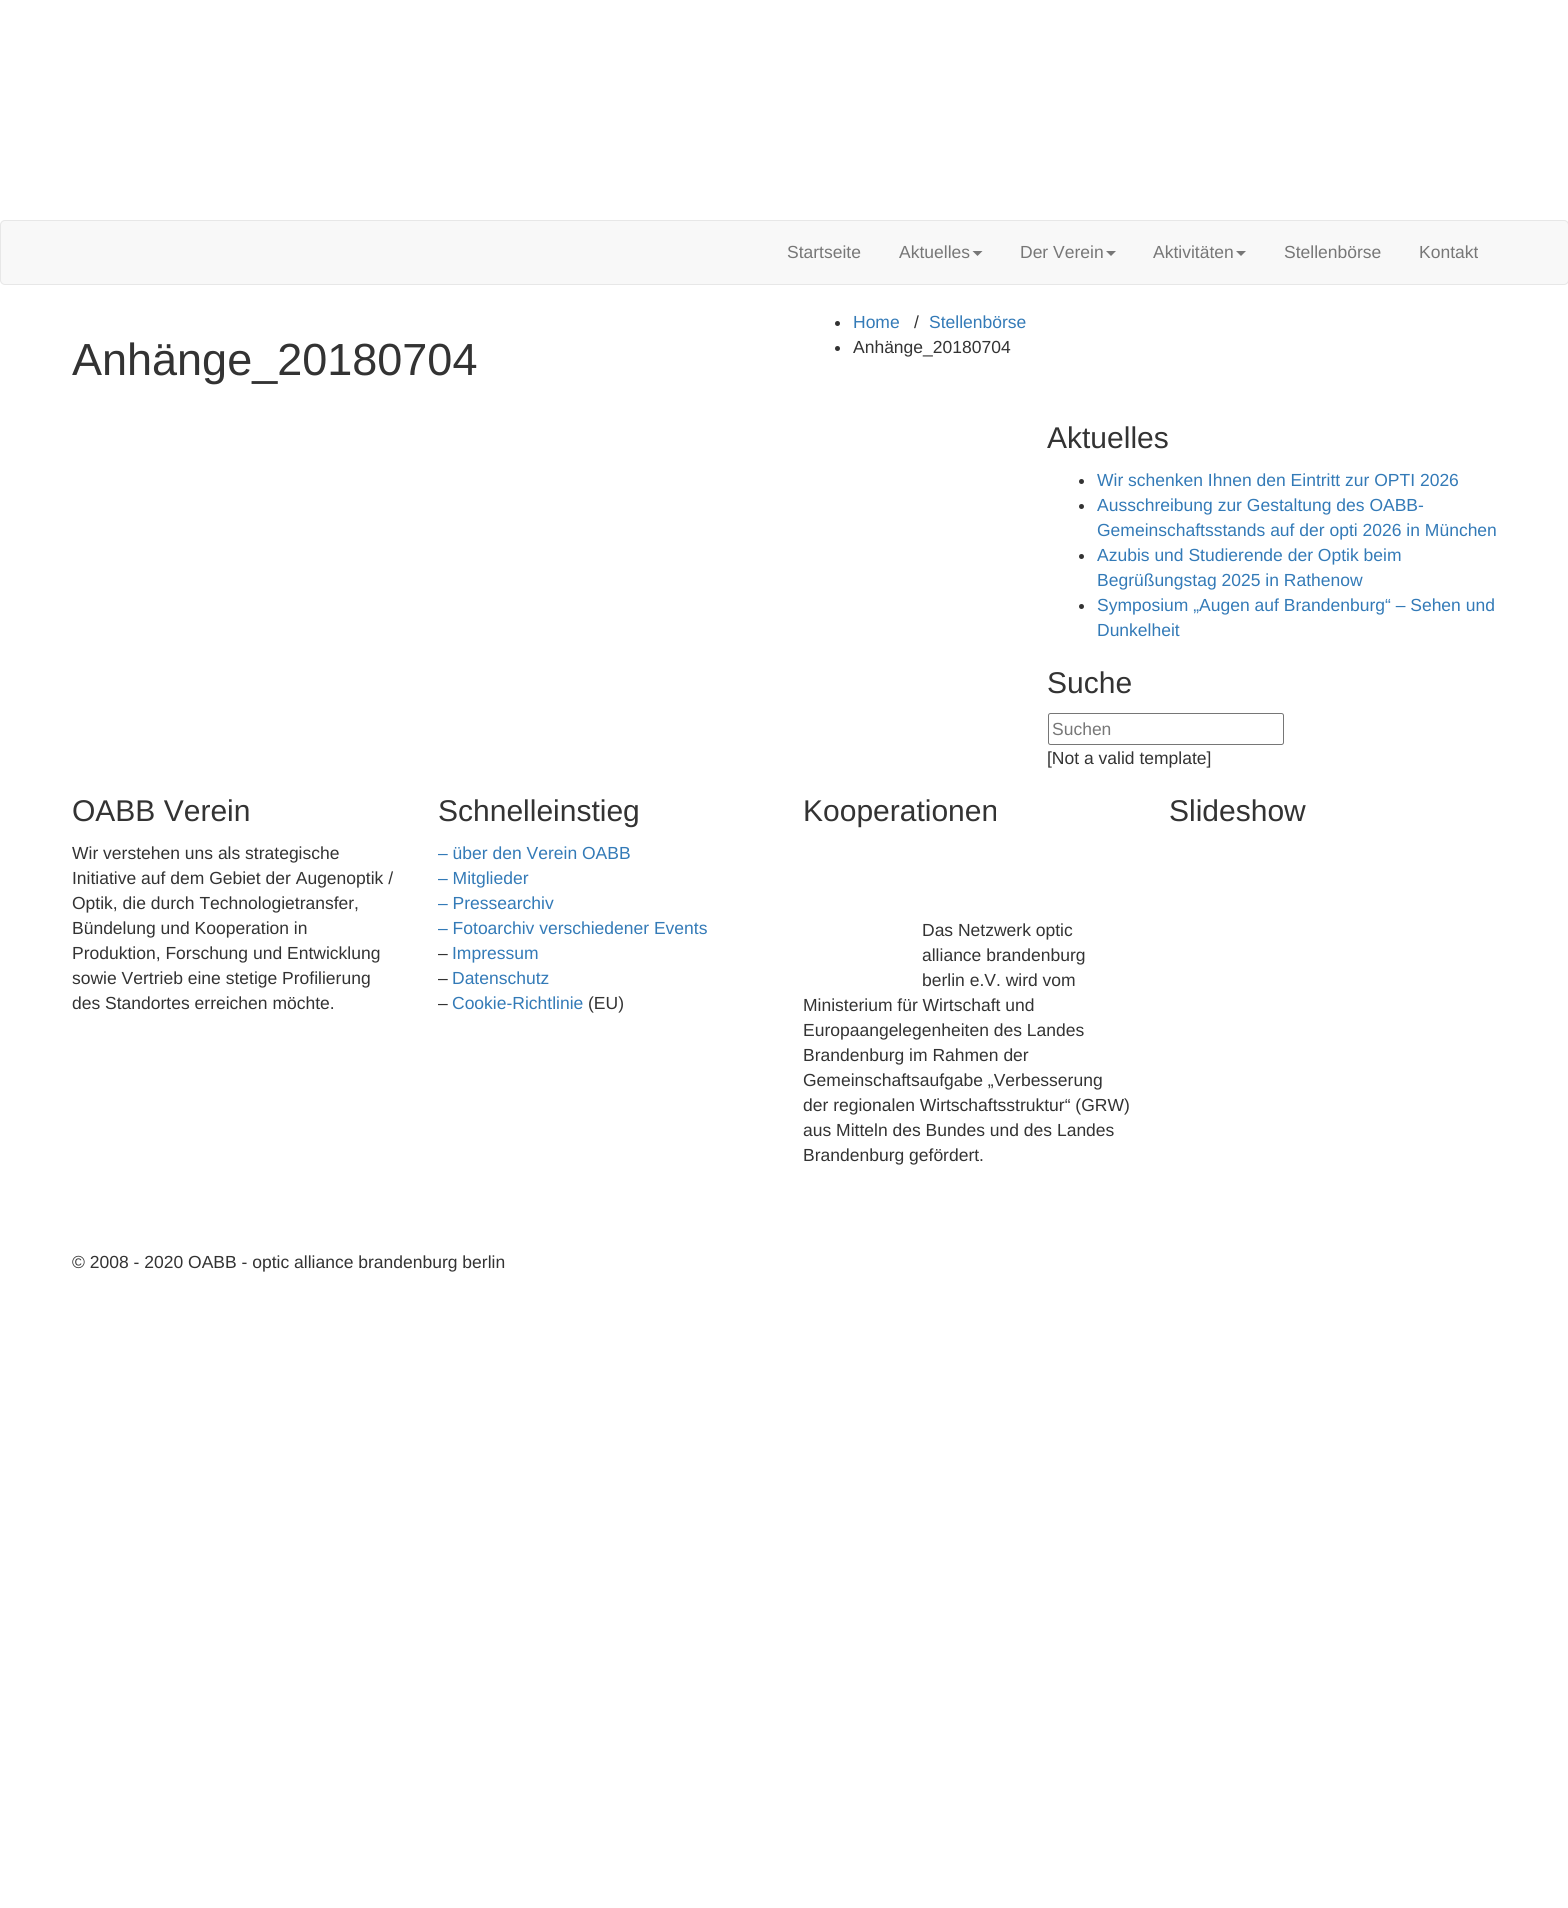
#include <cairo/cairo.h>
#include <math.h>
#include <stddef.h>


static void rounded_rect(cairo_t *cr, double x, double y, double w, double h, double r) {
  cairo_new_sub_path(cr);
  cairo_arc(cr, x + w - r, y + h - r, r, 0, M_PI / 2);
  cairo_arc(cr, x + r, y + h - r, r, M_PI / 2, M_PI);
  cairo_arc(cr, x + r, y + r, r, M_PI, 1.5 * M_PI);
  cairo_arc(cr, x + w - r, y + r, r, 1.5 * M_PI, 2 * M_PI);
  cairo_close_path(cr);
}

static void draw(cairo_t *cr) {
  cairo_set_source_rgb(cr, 1, 1, 1);
  cairo_paint(cr);
  cairo_set_source_rgb(cr, 248 / 255.0, 248 / 255.0, 248 / 255.0);
  rounded_rect(cr, 0.5, 220.5, 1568, 64, 4.5);
  cairo_fill_preserve(cr);
  cairo_set_source_rgb(cr, 231 / 255.0, 231 / 255.0, 231 / 255.0);
  cairo_set_line_width(cr, 1);
  cairo_stroke(cr);
  cairo_set_source_rgb(cr, 119 / 255.0, 119 / 255.0, 119 / 255.0);
  cairo_new_path(cr);
  cairo_move_to(cr, 972.5, 251);
  cairo_line_to(cr, 982.5, 251);
  cairo_line_to(cr, 977.5, 256);
  cairo_close_path(cr);
  cairo_fill(cr);
  cairo_new_path(cr);
  cairo_move_to(cr, 1106, 251);
  cairo_line_to(cr, 1116, 251);
  cairo_line_to(cr, 1111, 256);
  cairo_close_path(cr);
  cairo_fill(cr);
  cairo_new_path(cr);
  cairo_move_to(cr, 1236, 251);
  cairo_line_to(cr, 1246, 251);
  cairo_line_to(cr, 1241, 256);
  cairo_close_path(cr);
  cairo_fill(cr);
  cairo_set_source_rgb(cr, 51 / 255.0, 51 / 255.0, 51 / 255.0);
  cairo_arc(cr, 837.5, 323.5, 2.5, 0, 2 * M_PI);
  cairo_fill(cr);
  cairo_arc(cr, 837.5, 348.5, 2.5, 0, 2 * M_PI);
  cairo_fill(cr);
  cairo_arc(cr, 1081.5, 481.5, 2.5, 0, 2 * M_PI);
  cairo_fill(cr);
  cairo_arc(cr, 1081.5, 506.5, 2.5, 0, 2 * M_PI);
  cairo_fill(cr);
  cairo_arc(cr, 1081.5, 556.5, 2.5, 0, 2 * M_PI);
  cairo_fill(cr);
  cairo_arc(cr, 1081.5, 606.5, 2.5, 0, 2 * M_PI);
  cairo_fill(cr);
  rounded_rect(cr, 1048.5, 713.5, 235, 31, 2);
  cairo_set_source_rgb(cr, 118 / 255.0, 118 / 255.0, 118 / 255.0);
  cairo_stroke(cr);
  cairo_select_font_face(cr, "Liberation Sans", CAIRO_FONT_SLANT_NORMAL, CAIRO_FONT_WEIGHT_NORMAL);
  cairo_set_font_size(cr, 17.5);
  cairo_set_source_rgb(cr, 119 / 255.0, 119 / 255.0, 119 / 255.0);
  cairo_move_to(cr, 787, 258);
  cairo_show_text(cr, "Startseite");
  cairo_move_to(cr, 899, 258);
  cairo_show_text(cr, "Aktuelles");
  cairo_move_to(cr, 1020, 258);
  cairo_show_text(cr, "Der Verein");
  cairo_move_to(cr, 1153, 258);
  cairo_show_text(cr, "Aktivitäten");
  cairo_move_to(cr, 1284, 258);
  cairo_show_text(cr, "Stellenbörse");
  cairo_move_to(cr, 1419, 258);
  cairo_show_text(cr, "Kontakt");
  cairo_set_source_rgb(cr, 51 / 255.0, 122 / 255.0, 183 / 255.0);
  cairo_move_to(cr, 853, 328);
  cairo_show_text(cr, "Home");
  cairo_set_source_rgb(cr, 51 / 255.0, 51 / 255.0, 51 / 255.0);
  cairo_move_to(cr, 914, 328);
  cairo_show_text(cr, "/");
  cairo_set_source_rgb(cr, 51 / 255.0, 122 / 255.0, 183 / 255.0);
  cairo_move_to(cr, 929, 328);
  cairo_show_text(cr, "Stellenbörse");
  cairo_set_source_rgb(cr, 51 / 255.0, 51 / 255.0, 51 / 255.0);
  cairo_move_to(cr, 853, 353);
  cairo_show_text(cr, "Anhänge_20180704");
  cairo_set_font_size(cr, 45);
  cairo_move_to(cr, 72, 375);
  cairo_show_text(cr, "Anhänge_20180704");
  cairo_set_font_size(cr, 30);
  cairo_move_to(cr, 1047, 448);
  cairo_show_text(cr, "Aktuelles");
  cairo_set_font_size(cr, 17.5);
  cairo_set_source_rgb(cr, 51 / 255.0, 122 / 255.0, 183 / 255.0);
  cairo_move_to(cr, 1097, 486);
  cairo_show_text(cr, "Wir schenken Ihnen den Eintritt zur OPTI 2026");
  cairo_move_to(cr, 1097, 511);
  cairo_show_text(cr, "Ausschreibung zur Gestaltung des OABB-");
  cairo_move_to(cr, 1097, 536);
  cairo_show_text(cr, "Gemeinschaftsstands auf der opti 2026 in München");
  cairo_move_to(cr, 1097, 561);
  cairo_show_text(cr, "Azubis und Studierende der Optik beim");
  cairo_move_to(cr, 1097, 586);
  cairo_show_text(cr, "Begrüßungstag 2025 in Rathenow");
  cairo_move_to(cr, 1097, 611);
  cairo_show_text(cr, "Symposium „Augen auf Brandenburg“ – Sehen und");
  cairo_move_to(cr, 1097, 636);
  cairo_show_text(cr, "Dunkelheit");
  cairo_set_font_size(cr, 30);
  cairo_set_source_rgb(cr, 51 / 255.0, 51 / 255.0, 51 / 255.0);
  cairo_move_to(cr, 1047, 693);
  cairo_show_text(cr, "Suche");
  cairo_set_font_size(cr, 17.5);
  cairo_set_source_rgb(cr, 119 / 255.0, 119 / 255.0, 119 / 255.0);
  cairo_move_to(cr, 1052, 735);
  cairo_show_text(cr, "Suchen");
  cairo_set_source_rgb(cr, 51 / 255.0, 51 / 255.0, 51 / 255.0);
  cairo_move_to(cr, 1047, 764);
  cairo_show_text(cr, "[Not a valid template]");
  cairo_set_font_size(cr, 30);
  cairo_move_to(cr, 72, 821);
  cairo_show_text(cr, "OABB Verein");
  cairo_set_font_size(cr, 17.5);
  cairo_move_to(cr, 72, 859);
  cairo_show_text(cr, "Wir verstehen uns als strategische");
  cairo_move_to(cr, 72, 884);
  cairo_show_text(cr, "Initiative auf dem Gebiet der Augenoptik /");
  cairo_move_to(cr, 72, 909);
  cairo_show_text(cr, "Optik, die durch Technologietransfer,");
  cairo_move_to(cr, 72, 934);
  cairo_show_text(cr, "Bündelung und Kooperation in");
  cairo_move_to(cr, 72, 959);
  cairo_show_text(cr, "Produktion, Forschung und Entwicklung");
  cairo_move_to(cr, 72, 984);
  cairo_show_text(cr, "sowie Vertrieb eine stetige Profilierung");
  cairo_move_to(cr, 72, 1009);
  cairo_show_text(cr, "des Standortes erreichen möchte.");
  cairo_set_font_size(cr, 30);
  cairo_move_to(cr, 438, 821);
  cairo_show_text(cr, "Schnelleinstieg");
  cairo_set_font_size(cr, 17.5);
  cairo_set_source_rgb(cr, 51 / 255.0, 122 / 255.0, 183 / 255.0);
  cairo_move_to(cr, 438, 859);
  cairo_show_text(cr, "– über den Verein OABB");
  cairo_move_to(cr, 438, 884);
  cairo_show_text(cr, "– Mitglieder");
  cairo_move_to(cr, 438, 909);
  cairo_show_text(cr, "– Pressearchiv");
  cairo_move_to(cr, 438, 934);
  cairo_show_text(cr, "– Fotoarchiv verschiedener Events");
  cairo_set_source_rgb(cr, 51 / 255.0, 51 / 255.0, 51 / 255.0);
  cairo_move_to(cr, 438, 959);
  cairo_show_text(cr, "–");
  cairo_set_source_rgb(cr, 51 / 255.0, 122 / 255.0, 183 / 255.0);
  cairo_move_to(cr, 452, 959);
  cairo_show_text(cr, "Impressum");
  cairo_set_source_rgb(cr, 51 / 255.0, 51 / 255.0, 51 / 255.0);
  cairo_move_to(cr, 438, 984);
  cairo_show_text(cr, "–");
  cairo_set_source_rgb(cr, 51 / 255.0, 122 / 255.0, 183 / 255.0);
  cairo_move_to(cr, 452, 984);
  cairo_show_text(cr, "Datenschutz");
  cairo_set_source_rgb(cr, 51 / 255.0, 51 / 255.0, 51 / 255.0);
  cairo_move_to(cr, 438, 1009);
  cairo_show_text(cr, "–");
  cairo_set_source_rgb(cr, 51 / 255.0, 122 / 255.0, 183 / 255.0);
  cairo_move_to(cr, 452, 1009);
  cairo_show_text(cr, "Cookie-Richtlinie");
  cairo_set_source_rgb(cr, 51 / 255.0, 51 / 255.0, 51 / 255.0);
  cairo_move_to(cr, 588, 1009);
  cairo_show_text(cr, "(EU)");
  cairo_set_font_size(cr, 30);
  cairo_move_to(cr, 803, 821);
  cairo_show_text(cr, "Kooperationen");
  cairo_set_font_size(cr, 17.5);
  cairo_move_to(cr, 922, 936);
  cairo_show_text(cr, "Das Netzwerk optic");
  cairo_move_to(cr, 922, 961);
  cairo_show_text(cr, "alliance brandenburg");
  cairo_move_to(cr, 922, 986);
  cairo_show_text(cr, "berlin e.V. wird vom");
  cairo_move_to(cr, 803, 1011);
  cairo_show_text(cr, "Ministerium für Wirtschaft und");
  cairo_move_to(cr, 803, 1036);
  cairo_show_text(cr, "Europaangelegenheiten des Landes");
  cairo_move_to(cr, 803, 1061);
  cairo_show_text(cr, "Brandenburg im Rahmen der");
  cairo_move_to(cr, 803, 1086);
  cairo_show_text(cr, "Gemeinschaftsaufgabe „Verbesserung");
  cairo_move_to(cr, 803, 1111);
  cairo_show_text(cr, "der regionalen Wirtschaftsstruktur“ (GRW)");
  cairo_move_to(cr, 803, 1136);
  cairo_show_text(cr, "aus Mitteln des Bundes und des Landes");
  cairo_move_to(cr, 803, 1161);
  cairo_show_text(cr, "Brandenburg gefördert.");
  cairo_set_font_size(cr, 30);
  cairo_move_to(cr, 1169, 821);
  cairo_show_text(cr, "Slideshow");
  cairo_set_font_size(cr, 17.5);
  cairo_move_to(cr, 72, 1268);
  cairo_show_text(cr, "© 2008 - 2020 OABB - optic alliance brandenburg berlin");
}

int main(void) {
  cairo_surface_t *surface = cairo_image_surface_create(CAIRO_FORMAT_RGB24, 1568, 1908);
  cairo_t *cr = cairo_create(surface);
  cairo_font_options_t *options = cairo_font_options_create();
  cairo_font_options_set_hint_metrics(options, CAIRO_HINT_METRICS_OFF);
  cairo_font_options_set_hint_style(options, CAIRO_HINT_STYLE_NONE);
  cairo_set_font_options(cr, options);
  cairo_set_miter_limit(cr, 4);
  draw(cr);
  cairo_surface_write_to_png(surface, "out.png");
  cairo_font_options_destroy(options);
  cairo_destroy(cr);
  cairo_surface_destroy(surface);
  return 0;
}
